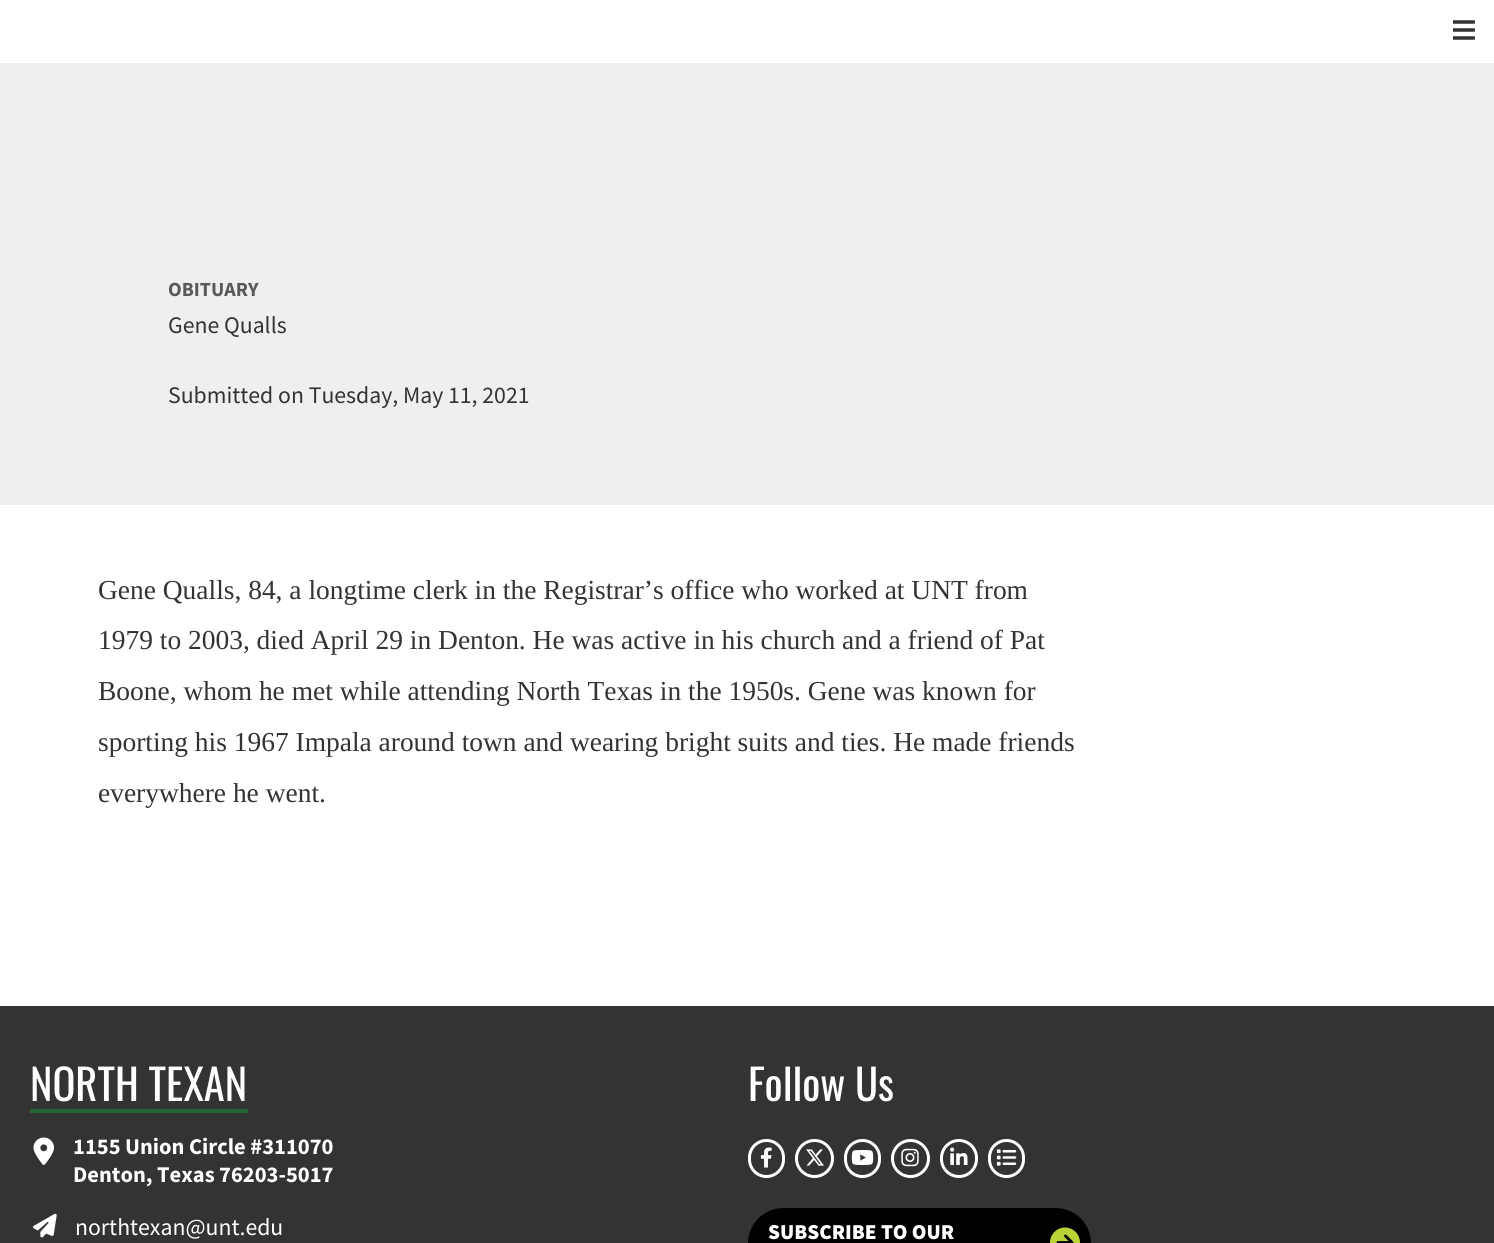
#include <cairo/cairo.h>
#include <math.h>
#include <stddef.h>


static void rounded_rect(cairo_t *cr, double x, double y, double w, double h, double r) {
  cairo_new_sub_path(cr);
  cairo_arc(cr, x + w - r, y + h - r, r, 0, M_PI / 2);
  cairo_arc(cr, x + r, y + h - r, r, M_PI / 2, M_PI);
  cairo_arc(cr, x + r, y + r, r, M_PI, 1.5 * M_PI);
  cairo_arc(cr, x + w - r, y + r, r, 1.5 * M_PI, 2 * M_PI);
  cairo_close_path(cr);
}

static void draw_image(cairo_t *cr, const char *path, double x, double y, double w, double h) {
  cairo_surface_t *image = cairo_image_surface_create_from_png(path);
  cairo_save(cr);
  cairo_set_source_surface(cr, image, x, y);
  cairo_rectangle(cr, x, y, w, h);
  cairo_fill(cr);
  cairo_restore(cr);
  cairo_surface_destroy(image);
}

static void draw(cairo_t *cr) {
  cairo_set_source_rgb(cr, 1, 1, 1);
  cairo_paint(cr);
  draw_image(cr, "images/1.png", 1453, 20, 22, 20);
  cairo_set_source_rgb(cr, 239 / 255.0, 239 / 255.0, 239 / 255.0);
  cairo_rectangle(cr, 0, 63, 1494, 442);
  cairo_fill(cr);
  cairo_set_source_rgb(cr, 51 / 255.0, 51 / 255.0, 51 / 255.0);
  cairo_rectangle(cr, 0, 1006, 1494, 237);
  cairo_fill(cr);
  cairo_set_source_rgb(cr, 39 / 255.0, 100 / 255.0, 54 / 255.0);
  cairo_rectangle(cr, 30, 1109, 218, 4);
  cairo_fill(cr);
  draw_image(cr, "images/2.png", 33, 1137, 22, 28);
  draw_image(cr, "images/3.png", 33, 1213, 24, 25);
  rounded_rect(cr, 749.5, 1140.5, 34, 36, 17);
  cairo_set_source_rgb(cr, 1, 1, 1);
  cairo_set_line_width(cr, 3);
  cairo_stroke(cr);
  draw_image(cr, "images/4.png", 760, 1147, 12, 21);
  cairo_arc(cr, 814.5, 1158.5, 18, 0, 2 * M_PI);
  cairo_stroke(cr);
  draw_image(cr, "images/5.png", 806, 1149, 18, 17);
  rounded_rect(cr, 845.5, 1140.5, 34, 36, 17);
  cairo_stroke(cr);
  draw_image(cr, "images/6.png", 851, 1150, 23, 15);
  cairo_arc(cr, 910.5, 1158.5, 18, 0, 2 * M_PI);
  cairo_stroke(cr);
  draw_image(cr, "images/7.png", 901, 1148, 18, 19);
  rounded_rect(cr, 941.5, 1140.5, 35, 36, 17.5);
  cairo_stroke(cr);
  draw_image(cr, "images/8.png", 950, 1147, 18, 18);
  rounded_rect(cr, 989.5, 1140.5, 34, 36, 17);
  cairo_stroke(cr);
  draw_image(cr, "images/9.png", 996, 1149, 21, 17);
  cairo_set_source_rgb(cr, 0, 0, 0);
  rounded_rect(cr, 748, 1208, 343, 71, 35.5);
  cairo_fill(cr);
  draw_image(cr, "images/10.png", 1050, 1227, 30, 16);
  cairo_select_font_face(cr, "Source Sans Pro", CAIRO_FONT_SLANT_NORMAL, CAIRO_FONT_WEIGHT_BOLD);
  cairo_set_font_size(cr, 20);
  cairo_set_source_rgb(cr, 89 / 255.0, 89 / 255.0, 89 / 255.0);
  cairo_move_to(cr, 168, 296);
  cairo_show_text(cr, "OBITUARY");
  cairo_select_font_face(cr, "Source Sans Pro", CAIRO_FONT_SLANT_NORMAL, CAIRO_FONT_WEIGHT_NORMAL);
  cairo_set_font_size(cr, 23.75);
  cairo_set_source_rgb(cr, 51 / 255.0, 51 / 255.0, 51 / 255.0);
  cairo_move_to(cr, 168, 333);
  cairo_show_text(cr, "Gene Qualls");
  cairo_move_to(cr, 168, 403);
  cairo_show_text(cr, "Submitted on Tuesday, May 11, 2021");
  cairo_select_font_face(cr, "Liberation Serif", CAIRO_FONT_SLANT_NORMAL, CAIRO_FONT_WEIGHT_NORMAL);
  cairo_set_font_size(cr, 27.45);
  cairo_move_to(cr, 98, 599);
  cairo_show_text(cr, "Gene Qualls, 84, a longtime clerk in the Registrar’s office who worked at UNT from");
  cairo_move_to(cr, 98, 649);
  cairo_show_text(cr, "1979 to 2003, died April 29 in Denton. He was active in his church and a friend of Pat");
  cairo_move_to(cr, 98, 700);
  cairo_show_text(cr, "Boone, whom he met while attending North Texas in the 1950s. Gene was known for");
  cairo_move_to(cr, 98, 751);
  cairo_show_text(cr, "sporting his 1967 Impala around town and wearing bright suits and ties. He made friends");
  cairo_move_to(cr, 98, 802);
  cairo_show_text(cr, "everywhere he went.");
  cairo_select_font_face(cr, "Oswald", CAIRO_FONT_SLANT_NORMAL, CAIRO_FONT_WEIGHT_NORMAL);
  cairo_set_font_size(cr, 42.5);
  cairo_set_source_rgb(cr, 1, 1, 1);
  cairo_move_to(cr, 30, 1101);
  cairo_show_text(cr, "NORTH TEXAN");
  cairo_select_font_face(cr, "Source Sans Pro", CAIRO_FONT_SLANT_NORMAL, CAIRO_FONT_WEIGHT_BOLD);
  cairo_set_font_size(cr, 22.5);
  cairo_move_to(cr, 73, 1154);
  cairo_show_text(cr, "1155 Union Circle #311070");
  cairo_move_to(cr, 73, 1182);
  cairo_show_text(cr, "Denton, Texas 76203-5017");
  cairo_select_font_face(cr, "Source Sans Pro", CAIRO_FONT_SLANT_NORMAL, CAIRO_FONT_WEIGHT_NORMAL);
  cairo_set_font_size(cr, 23.75);
  cairo_move_to(cr, 75, 1235);
  cairo_show_text(cr, "northtexan@unt.edu");
  cairo_select_font_face(cr, "Oswald", CAIRO_FONT_SLANT_NORMAL, CAIRO_FONT_WEIGHT_NORMAL);
  cairo_set_font_size(cr, 42.5);
  cairo_move_to(cr, 748, 1101);
  cairo_show_text(cr, "Follow Us");
  cairo_select_font_face(cr, "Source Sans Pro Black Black", CAIRO_FONT_SLANT_NORMAL, CAIRO_FONT_WEIGHT_NORMAL);
  cairo_set_font_size(cr, 21.25);
  cairo_move_to(cr, 768, 1239);
  cairo_show_text(cr, "SUBSCRIBE TO OUR");
}

int main(void) {
  cairo_surface_t *surface = cairo_image_surface_create(CAIRO_FORMAT_RGB24, 1494, 1243);
  cairo_t *cr = cairo_create(surface);
  cairo_font_options_t *options = cairo_font_options_create();
  cairo_font_options_set_hint_metrics(options, CAIRO_HINT_METRICS_OFF);
  cairo_font_options_set_hint_style(options, CAIRO_HINT_STYLE_NONE);
  cairo_set_font_options(cr, options);
  cairo_set_miter_limit(cr, 4);
  draw(cr);
  cairo_surface_write_to_png(surface, "out.png");
  cairo_font_options_destroy(options);
  cairo_destroy(cr);
  cairo_surface_destroy(surface);
  return 0;
}
